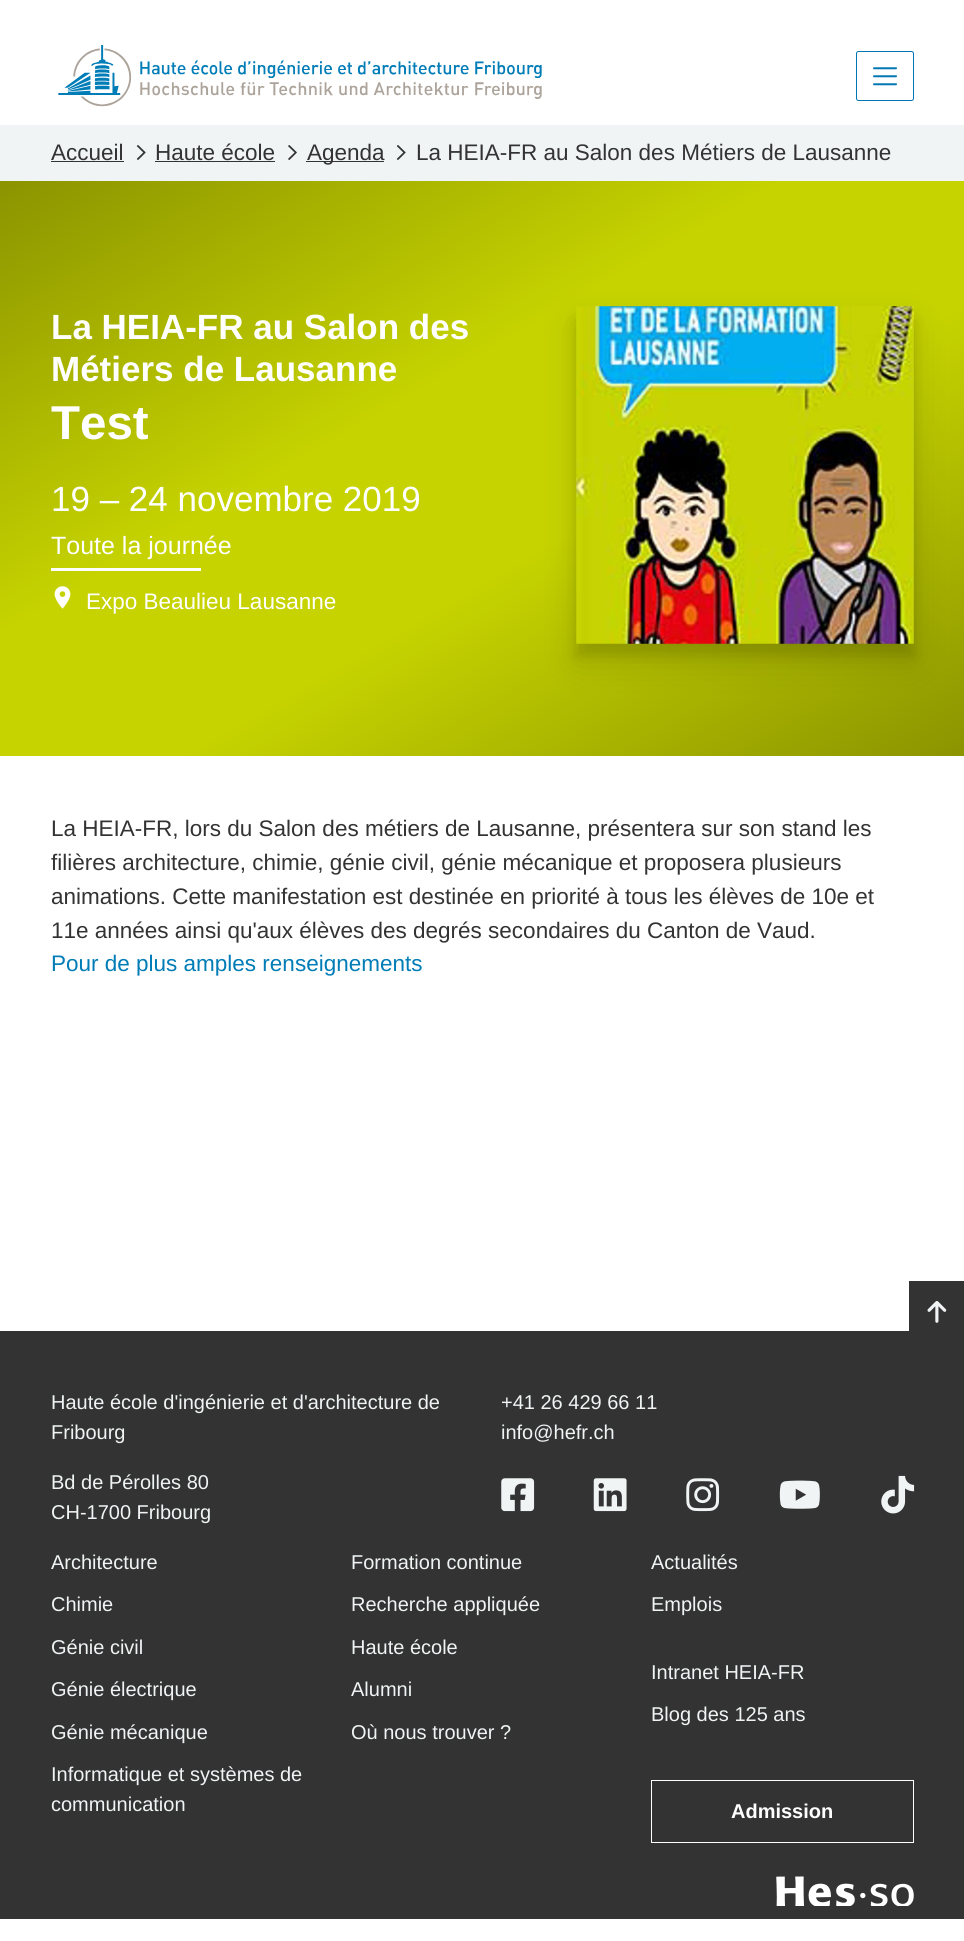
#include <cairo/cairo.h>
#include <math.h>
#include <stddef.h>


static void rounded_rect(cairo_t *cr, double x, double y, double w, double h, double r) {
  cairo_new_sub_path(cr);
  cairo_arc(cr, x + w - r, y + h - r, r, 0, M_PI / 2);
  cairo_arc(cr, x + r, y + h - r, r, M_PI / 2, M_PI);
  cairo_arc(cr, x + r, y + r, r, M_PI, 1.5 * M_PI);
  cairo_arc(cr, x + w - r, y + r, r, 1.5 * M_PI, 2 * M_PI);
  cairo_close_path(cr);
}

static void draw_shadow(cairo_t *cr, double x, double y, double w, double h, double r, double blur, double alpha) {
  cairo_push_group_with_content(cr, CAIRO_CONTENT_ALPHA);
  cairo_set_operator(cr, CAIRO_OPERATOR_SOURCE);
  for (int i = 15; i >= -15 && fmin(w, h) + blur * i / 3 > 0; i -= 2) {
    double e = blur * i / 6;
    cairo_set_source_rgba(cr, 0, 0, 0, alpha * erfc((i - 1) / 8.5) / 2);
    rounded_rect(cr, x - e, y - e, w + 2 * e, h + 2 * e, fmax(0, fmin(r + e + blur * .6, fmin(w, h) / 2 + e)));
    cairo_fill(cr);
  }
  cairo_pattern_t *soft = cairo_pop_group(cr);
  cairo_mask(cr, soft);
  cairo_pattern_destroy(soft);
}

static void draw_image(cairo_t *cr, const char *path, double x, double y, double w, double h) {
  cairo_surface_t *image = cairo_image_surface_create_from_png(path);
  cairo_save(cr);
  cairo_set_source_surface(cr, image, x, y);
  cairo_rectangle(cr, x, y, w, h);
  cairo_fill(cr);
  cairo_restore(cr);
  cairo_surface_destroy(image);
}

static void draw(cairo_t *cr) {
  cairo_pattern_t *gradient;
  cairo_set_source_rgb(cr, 1, 1, 1);
  cairo_paint(cr);
  draw_image(cr, "images/1.png", 58, 45, 484, 62);
  rounded_rect(cr, 856.5, 51.5, 57, 49, 2);
  cairo_set_source_rgb(cr, 0, 119 / 255.0, 179 / 255.0);
  cairo_set_line_width(cr, 1);
  cairo_stroke(cr);
  draw_image(cr, "images/2.png", 873, 67, 24, 19);
  cairo_set_source_rgb(cr, 240 / 255.0, 244 / 255.0, 245 / 255.0);
  cairo_rectangle(cr, 0, 125, 964, 56);
  cairo_fill(cr);
  cairo_set_source_rgb(cr, 51 / 255.0, 51 / 255.0, 51 / 255.0);
  cairo_rectangle(cr, 51, 161, 73, 1);
  cairo_fill(cr);
  draw_image(cr, "images/3.png", 136, 145, 10, 15);
  cairo_rectangle(cr, 155, 161, 120, 1);
  cairo_fill(cr);
  draw_image(cr, "images/4.png", 288, 145, 9, 15);
  cairo_rectangle(cr, 306, 161, 78, 1);
  cairo_fill(cr);
  draw_image(cr, "images/3.png", 396, 145, 10, 15);
  gradient = cairo_pattern_create_linear(237, 44, 728, 893);
  cairo_pattern_add_color_stop_rgba(gradient, 0, 139 / 255.0, 148 / 255.0, 0, 1);
  cairo_pattern_add_color_stop_rgba(gradient, 0.4, 198 / 255.0, 211 / 255.0, 0, 1);
  cairo_pattern_add_color_stop_rgba(gradient, 0.6, 198 / 255.0, 211 / 255.0, 0, 1);
  cairo_pattern_add_color_stop_rgba(gradient, 1, 139 / 255.0, 148 / 255.0, 0, 1);
  cairo_set_source(cr, gradient);
  cairo_pattern_destroy(gradient);
  cairo_rectangle(cr, 0, 181, 964, 575);
  cairo_fill(cr);
  cairo_set_source_rgb(cr, 1, 1, 1);
  cairo_rectangle(cr, 51, 568, 150, 3);
  cairo_fill(cr);
  draw_image(cr, "images/5.png", 54, 586, 17, 23);
  cairo_set_source_rgb(cr, 0, 0, 0);
  draw_shadow(cr, 576, 324, 338, 337, 0, 17.5, 0.13);
  draw_shadow(cr, 576, 319, 338, 337, 0, 6, 0.11);
  draw_image(cr, "images/6.png", 576, 306, 338, 338);
  cairo_set_source_rgb(cr, 51 / 255.0, 51 / 255.0, 51 / 255.0);
  cairo_rectangle(cr, 909, 1281, 55, 50);
  cairo_fill(cr);
  draw_image(cr, "images/7.png", 927, 1301, 20, 22);
  cairo_rectangle(cr, 0, 1331, 964, 588);
  cairo_fill(cr);
  draw_image(cr, "images/8.png", 501, 1478, 34, 34);
  draw_image(cr, "images/9.png", 593, 1478, 34, 34);
  draw_image(cr, "images/10.png", 686, 1478, 34, 34);
  draw_image(cr, "images/11.png", 779, 1480, 41, 29);
  draw_image(cr, "images/12.png", 881, 1475, 34, 39);
  cairo_rectangle(cr, 651.5, 1780.5, 262, 62);
  cairo_set_source_rgb(cr, 1, 1, 1);
  cairo_stroke(cr);
  draw_image(cr, "images/13.png", 776, 1876, 138, 30);
  cairo_select_font_face(cr, "Liberation Sans", CAIRO_FONT_SLANT_NORMAL, CAIRO_FONT_WEIGHT_NORMAL);
  cairo_set_font_size(cr, 22.5);
  cairo_set_source_rgb(cr, 51 / 255.0, 51 / 255.0, 51 / 255.0);
  cairo_move_to(cr, 51, 160);
  cairo_show_text(cr, "Accueil");
  cairo_move_to(cr, 155, 160);
  cairo_show_text(cr, "Haute école");
  cairo_move_to(cr, 307, 160);
  cairo_show_text(cr, "Agenda");
  cairo_move_to(cr, 416, 160);
  cairo_show_text(cr, "La HEIA-FR au Salon des Métiers de Lausanne");
  cairo_select_font_face(cr, "Liberation Sans", CAIRO_FONT_SLANT_NORMAL, CAIRO_FONT_WEIGHT_BOLD);
  cairo_set_font_size(cr, 35);
  cairo_set_source_rgb(cr, 1, 1, 1);
  cairo_move_to(cr, 51, 339);
  cairo_show_text(cr, "La HEIA-FR au Salon des");
  cairo_move_to(cr, 51, 381);
  cairo_show_text(cr, "Métiers de Lausanne");
  cairo_set_font_size(cr, 47.5);
  cairo_move_to(cr, 51, 439);
  cairo_show_text(cr, "Test");
  cairo_select_font_face(cr, "Liberation Sans", CAIRO_FONT_SLANT_NORMAL, CAIRO_FONT_WEIGHT_NORMAL);
  cairo_set_font_size(cr, 35);
  cairo_move_to(cr, 51, 511);
  cairo_show_text(cr, "19 – 24 novembre 2019");
  cairo_set_font_size(cr, 25);
  cairo_move_to(cr, 51, 554);
  cairo_show_text(cr, "Toute la journée");
  cairo_set_font_size(cr, 22.5);
  cairo_move_to(cr, 86, 609);
  cairo_show_text(cr, "Expo Beaulieu Lausanne");
  cairo_set_source_rgb(cr, 51 / 255.0, 51 / 255.0, 51 / 255.0);
  cairo_move_to(cr, 51, 836);
  cairo_show_text(cr, "La HEIA-FR, lors du Salon des métiers de Lausanne, présentera sur son stand les");
  cairo_move_to(cr, 51, 870);
  cairo_show_text(cr, "filières architecture, chimie, génie civil, génie mécanique et proposera plusieurs");
  cairo_move_to(cr, 51, 904);
  cairo_show_text(cr, "animations. Cette manifestation est destinée en priorité à tous les élèves de 10e et");
  cairo_move_to(cr, 51, 938);
  cairo_show_text(cr, "11e années ainsi qu'aux élèves des degrés secondaires du Canton de Vaud.");
  cairo_set_source_rgb(cr, 0, 124 / 255.0, 183 / 255.0);
  cairo_move_to(cr, 51, 971);
  cairo_show_text(cr, "Pour de plus amples renseignements");
  cairo_set_font_size(cr, 20);
  cairo_set_source_rgb(cr, 240 / 255.0, 244 / 255.0, 245 / 255.0);
  cairo_move_to(cr, 51, 1409);
  cairo_show_text(cr, "Haute école d'ingénierie et d'architecture de");
  cairo_move_to(cr, 51, 1439);
  cairo_show_text(cr, "Fribourg");
  cairo_move_to(cr, 51, 1489);
  cairo_show_text(cr, "Bd de Pérolles 80");
  cairo_move_to(cr, 51, 1519);
  cairo_show_text(cr, "CH-1700 Fribourg");
  cairo_move_to(cr, 501, 1409);
  cairo_show_text(cr, "+41 26 429 66 11");
  cairo_move_to(cr, 501, 1439);
  cairo_show_text(cr, "info@hefr.ch");
  cairo_move_to(cr, 51, 1569);
  cairo_show_text(cr, "Architecture");
  cairo_move_to(cr, 51, 1611);
  cairo_show_text(cr, "Chimie");
  cairo_move_to(cr, 51, 1654);
  cairo_show_text(cr, "Génie civil");
  cairo_move_to(cr, 51, 1696);
  cairo_show_text(cr, "Génie électrique");
  cairo_move_to(cr, 51, 1739);
  cairo_show_text(cr, "Génie mécanique");
  cairo_move_to(cr, 51, 1781);
  cairo_show_text(cr, "Informatique et systèmes de");
  cairo_move_to(cr, 51, 1811);
  cairo_show_text(cr, "communication");
  cairo_move_to(cr, 351, 1569);
  cairo_show_text(cr, "Formation continue");
  cairo_move_to(cr, 351, 1611);
  cairo_show_text(cr, "Recherche appliquée");
  cairo_move_to(cr, 351, 1654);
  cairo_show_text(cr, "Haute école");
  cairo_move_to(cr, 351, 1696);
  cairo_show_text(cr, "Alumni");
  cairo_move_to(cr, 351, 1739);
  cairo_show_text(cr, "Où nous trouver ?");
  cairo_move_to(cr, 651, 1569);
  cairo_show_text(cr, "Actualités");
  cairo_move_to(cr, 651, 1611);
  cairo_show_text(cr, "Emplois");
  cairo_move_to(cr, 651, 1679);
  cairo_show_text(cr, "Intranet HEIA-FR");
  cairo_move_to(cr, 651, 1721);
  cairo_show_text(cr, "Blog des 125 ans");
  cairo_select_font_face(cr, "Liberation Sans", CAIRO_FONT_SLANT_NORMAL, CAIRO_FONT_WEIGHT_BOLD);
  cairo_set_source_rgb(cr, 1, 1, 1);
  cairo_move_to(cr, 731, 1818);
  cairo_show_text(cr, "Admission");
}

int main(void) {
  cairo_surface_t *surface = cairo_image_surface_create(CAIRO_FORMAT_RGB24, 964, 1941);
  cairo_t *cr = cairo_create(surface);
  cairo_font_options_t *options = cairo_font_options_create();
  cairo_font_options_set_hint_metrics(options, CAIRO_HINT_METRICS_OFF);
  cairo_font_options_set_hint_style(options, CAIRO_HINT_STYLE_NONE);
  cairo_set_font_options(cr, options);
  cairo_set_miter_limit(cr, 4);
  draw(cr);
  cairo_surface_write_to_png(surface, "out.png");
  cairo_font_options_destroy(options);
  cairo_destroy(cr);
  cairo_surface_destroy(surface);
  return 0;
}
